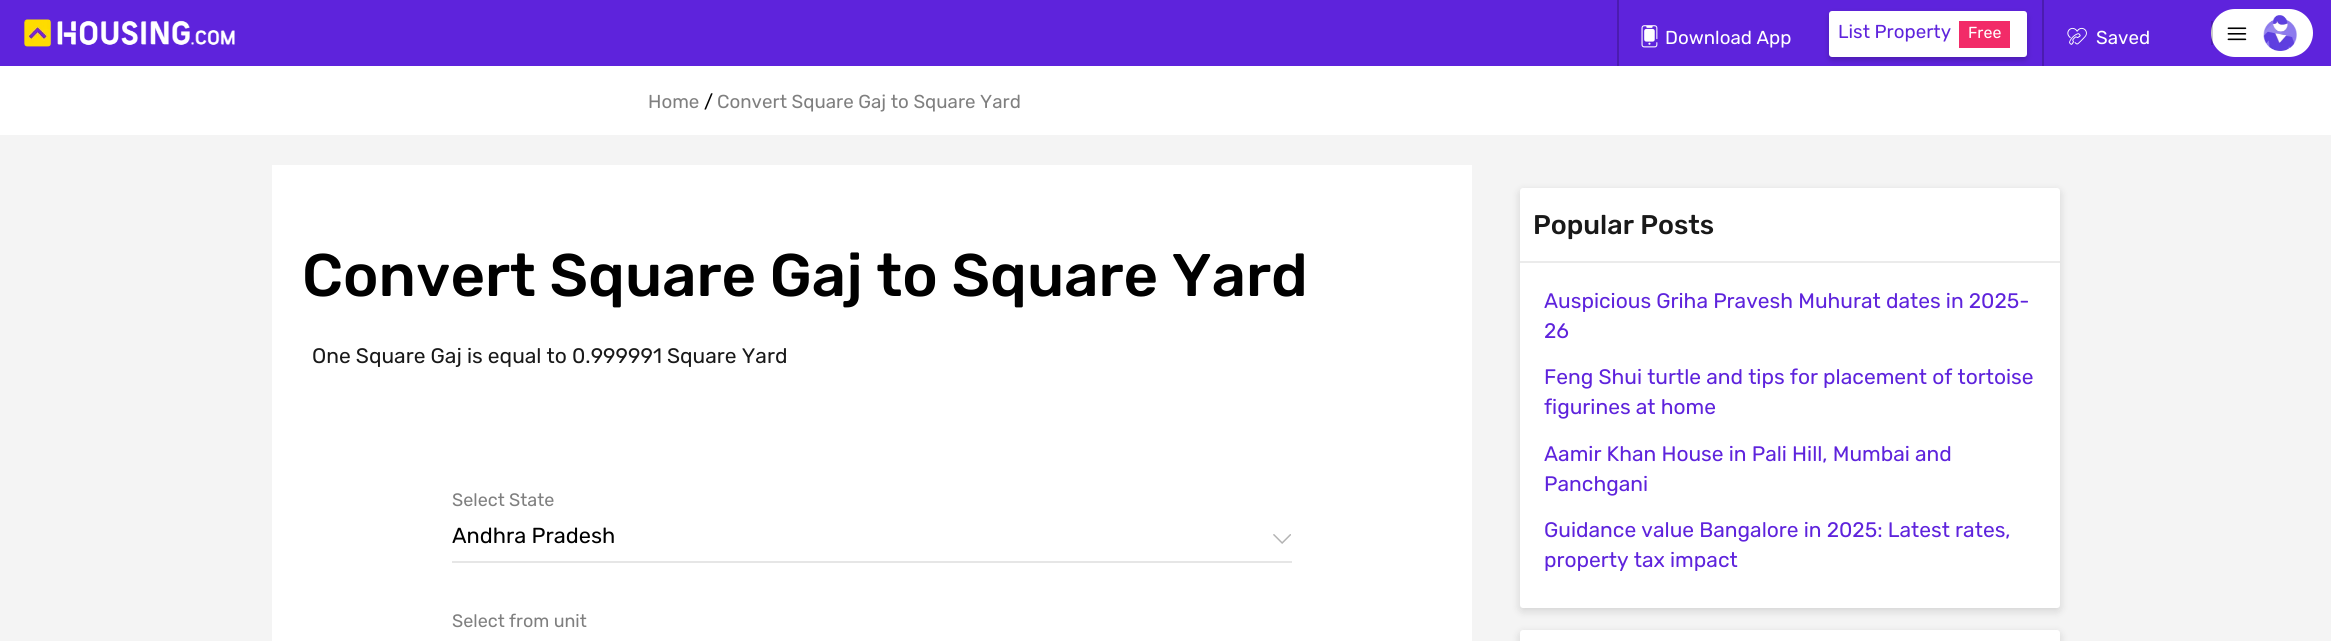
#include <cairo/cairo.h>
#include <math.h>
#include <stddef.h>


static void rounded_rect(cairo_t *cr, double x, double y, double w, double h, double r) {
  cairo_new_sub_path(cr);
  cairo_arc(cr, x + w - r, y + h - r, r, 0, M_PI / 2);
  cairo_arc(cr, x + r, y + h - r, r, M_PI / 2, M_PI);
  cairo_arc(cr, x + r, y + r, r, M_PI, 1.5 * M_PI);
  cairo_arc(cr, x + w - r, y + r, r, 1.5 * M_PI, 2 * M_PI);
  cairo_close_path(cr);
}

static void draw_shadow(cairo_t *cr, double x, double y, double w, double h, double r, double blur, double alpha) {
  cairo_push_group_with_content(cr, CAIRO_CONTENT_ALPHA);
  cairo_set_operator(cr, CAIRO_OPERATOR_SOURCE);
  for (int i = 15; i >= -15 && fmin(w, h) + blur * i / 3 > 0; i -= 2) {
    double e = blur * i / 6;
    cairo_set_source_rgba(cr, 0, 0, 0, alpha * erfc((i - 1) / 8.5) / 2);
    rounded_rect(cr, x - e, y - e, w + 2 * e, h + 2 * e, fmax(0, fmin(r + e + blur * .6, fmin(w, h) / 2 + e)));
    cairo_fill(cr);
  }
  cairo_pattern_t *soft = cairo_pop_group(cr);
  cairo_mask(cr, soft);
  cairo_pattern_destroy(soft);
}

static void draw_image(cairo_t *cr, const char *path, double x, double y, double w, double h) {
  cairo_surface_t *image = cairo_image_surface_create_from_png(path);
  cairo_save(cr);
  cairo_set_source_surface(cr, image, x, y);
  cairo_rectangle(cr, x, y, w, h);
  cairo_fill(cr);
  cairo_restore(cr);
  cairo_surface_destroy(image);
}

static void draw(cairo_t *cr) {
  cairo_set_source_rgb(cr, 1, 1, 1);
  cairo_paint(cr);
  cairo_set_source_rgb(cr, 94 / 255.0, 35 / 255.0, 220 / 255.0);
  cairo_rectangle(cr, 0, 0, 2331, 66);
  cairo_fill(cr);
  draw_image(cr, "images/1.png", 24, 19, 211, 28);
  cairo_set_source_rgb(cr, 75 / 255.0, 28 / 255.0, 176 / 255.0);
  cairo_rectangle(cr, 1617, 0, 2, 66);
  cairo_fill(cr);
  draw_image(cr, "images/2.png", 1641, 25, 17, 23);
  cairo_set_source_rgb(cr, 0, 0, 0);
  draw_shadow(cr, 1829, 14, 198, 46, 3, 3, 0.2);
  cairo_set_source_rgb(cr, 1, 1, 1);
  rounded_rect(cr, 1829, 11, 198, 46, 3);
  cairo_fill(cr);
  cairo_set_source_rgb(cr, 242 / 255.0, 43 / 255.0, 104 / 255.0);
  cairo_rectangle(cr, 1959, 21, 51, 27);
  cairo_fill(cr);
  cairo_set_source_rgb(cr, 75 / 255.0, 28 / 255.0, 176 / 255.0);
  cairo_rectangle(cr, 2042, 0, 2, 66);
  cairo_fill(cr);
  draw_image(cr, "images/3.png", 2067, 27, 20, 18);
  cairo_set_source_rgb(cr, 1, 1, 1);
  rounded_rect(cr, 2211, 9, 102, 48, 24);
  cairo_fill(cr);
  cairo_set_source_rgba(cr, 0, 0, 0, 0.2);
  cairo_rectangle(cr, 2211, 21, 2, 24);
  cairo_fill(cr);
  draw_image(cr, "images/4.png", 2227, 27, 20, 14);
  draw_image(cr, "images/5.png", 2263, 15, 34, 36);
  cairo_set_source_rgb(cr, 244 / 255.0, 244 / 255.0, 244 / 255.0);
  cairo_rectangle(cr, 0, 135, 2331, 506);
  cairo_fill(cr);
  cairo_set_source_rgb(cr, 1, 1, 1);
  cairo_rectangle(cr, 272, 165, 1200, 476);
  cairo_fill(cr);
  draw_image(cr, "images/6.png", 1273, 534, 18, 10);
  cairo_set_source_rgb(cr, 230 / 255.0, 230 / 255.0, 230 / 255.0);
  cairo_rectangle(cr, 452, 561, 840, 2);
  cairo_fill(cr);
  cairo_set_source_rgb(cr, 0, 0, 0);
  draw_shadow(cr, 1520, 191, 540, 420, 3, 4.5, 0.14);
  cairo_set_source_rgb(cr, 1, 1, 1);
  rounded_rect(cr, 1520, 188, 540, 420, 3);
  cairo_fill(cr);
  cairo_set_source_rgb(cr, 235 / 255.0, 235 / 255.0, 235 / 255.0);
  cairo_rectangle(cr, 1520, 261, 540, 2);
  cairo_fill(cr);
  cairo_set_source_rgb(cr, 0, 0, 0);
  draw_shadow(cr, 1520, 633, 540, 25, 3, 4.5, 0.14);
  cairo_set_source_rgb(cr, 1, 1, 1);
  rounded_rect(cr, 1520, 630, 540, 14, 3);
  cairo_fill(cr);
  cairo_select_font_face(cr, "Rubik Light", CAIRO_FONT_SLANT_NORMAL, CAIRO_FONT_WEIGHT_NORMAL);
  cairo_set_font_size(cr, 18.75);
  cairo_move_to(cr, 1665, 44);
  cairo_show_text(cr, "Download App");
  cairo_set_source_rgb(cr, 94 / 255.0, 35 / 255.0, 220 / 255.0);
  cairo_move_to(cr, 1838, 38);
  cairo_show_text(cr, "List Property");
  cairo_set_font_size(cr, 16);
  cairo_set_source_rgb(cr, 1, 1, 1);
  cairo_move_to(cr, 1968, 38);
  cairo_show_text(cr, "Free");
  cairo_set_font_size(cr, 18.75);
  cairo_move_to(cr, 2096, 44);
  cairo_show_text(cr, "Saved");
  cairo_set_source_rgb(cr, 127 / 255.0, 127 / 255.0, 127 / 255.0);
  cairo_move_to(cr, 648, 108);
  cairo_show_text(cr, "Home");
  cairo_set_source_rgb(cr, 0, 0, 0);
  cairo_move_to(cr, 704, 108);
  cairo_show_text(cr, "/");
  cairo_set_source_rgb(cr, 127 / 255.0, 127 / 255.0, 127 / 255.0);
  cairo_move_to(cr, 717, 108);
  cairo_show_text(cr, "Convert Square Gaj to Square Yard");
  cairo_select_font_face(cr, "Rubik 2 Light", CAIRO_FONT_SLANT_NORMAL, CAIRO_FONT_WEIGHT_NORMAL);
  cairo_set_font_size(cr, 60);
  cairo_set_source_rgb(cr, 0, 0, 0);
  cairo_move_to(cr, 302, 296);
  cairo_show_text(cr, "Convert Square Gaj to Square Yard");
  cairo_select_font_face(cr, "Rubik Light", CAIRO_FONT_SLANT_NORMAL, CAIRO_FONT_WEIGHT_NORMAL);
  cairo_set_font_size(cr, 21);
  cairo_set_source_rgb(cr, 25 / 255.0, 25 / 255.0, 25 / 255.0);
  cairo_move_to(cr, 312, 363);
  cairo_show_text(cr, "One Square Gaj is equal to 0.999991 Square Yard");
  cairo_set_font_size(cr, 18);
  cairo_set_source_rgb(cr, 127 / 255.0, 127 / 255.0, 127 / 255.0);
  cairo_move_to(cr, 452, 506);
  cairo_show_text(cr, "Select State");
  cairo_set_font_size(cr, 21.75);
  cairo_set_source_rgb(cr, 0, 0, 0);
  cairo_move_to(cr, 452, 543);
  cairo_show_text(cr, "Andhra Pradesh");
  cairo_set_font_size(cr, 18);
  cairo_set_source_rgb(cr, 127 / 255.0, 127 / 255.0, 127 / 255.0);
  cairo_move_to(cr, 452, 627);
  cairo_show_text(cr, "Select from unit");
  cairo_select_font_face(cr, "Rubik 2 Light", CAIRO_FONT_SLANT_NORMAL, CAIRO_FONT_WEIGHT_NORMAL);
  cairo_set_font_size(cr, 27);
  cairo_set_source_rgb(cr, 25 / 255.0, 25 / 255.0, 25 / 255.0);
  cairo_move_to(cr, 1533, 234);
  cairo_show_text(cr, "Popular Posts");
  cairo_select_font_face(cr, "Rubik Light", CAIRO_FONT_SLANT_NORMAL, CAIRO_FONT_WEIGHT_NORMAL);
  cairo_set_font_size(cr, 21);
  cairo_set_source_rgb(cr, 94 / 255.0, 35 / 255.0, 220 / 255.0);
  cairo_move_to(cr, 1544, 308);
  cairo_show_text(cr, "Auspicious Griha Pravesh Muhurat dates in 2025-");
  cairo_move_to(cr, 1544, 338);
  cairo_show_text(cr, "26");
  cairo_move_to(cr, 1544, 384);
  cairo_show_text(cr, "Feng Shui turtle and tips for placement of tortoise");
  cairo_move_to(cr, 1544, 414);
  cairo_show_text(cr, "figurines at home");
  cairo_move_to(cr, 1544, 461);
  cairo_show_text(cr, "Aamir Khan House in Pali Hill, Mumbai and");
  cairo_move_to(cr, 1544, 491);
  cairo_show_text(cr, "Panchgani");
  cairo_move_to(cr, 1544, 537);
  cairo_show_text(cr, "Guidance value Bangalore in 2025: Latest rates,");
  cairo_move_to(cr, 1544, 567);
  cairo_show_text(cr, "property tax impact");
}

int main(void) {
  cairo_surface_t *surface = cairo_image_surface_create(CAIRO_FORMAT_RGB24, 2331, 641);
  cairo_t *cr = cairo_create(surface);
  cairo_font_options_t *options = cairo_font_options_create();
  cairo_font_options_set_hint_metrics(options, CAIRO_HINT_METRICS_OFF);
  cairo_font_options_set_hint_style(options, CAIRO_HINT_STYLE_NONE);
  cairo_set_font_options(cr, options);
  cairo_set_miter_limit(cr, 4);
  draw(cr);
  cairo_surface_write_to_png(surface, "out.png");
  cairo_font_options_destroy(options);
  cairo_destroy(cr);
  cairo_surface_destroy(surface);
  return 0;
}
